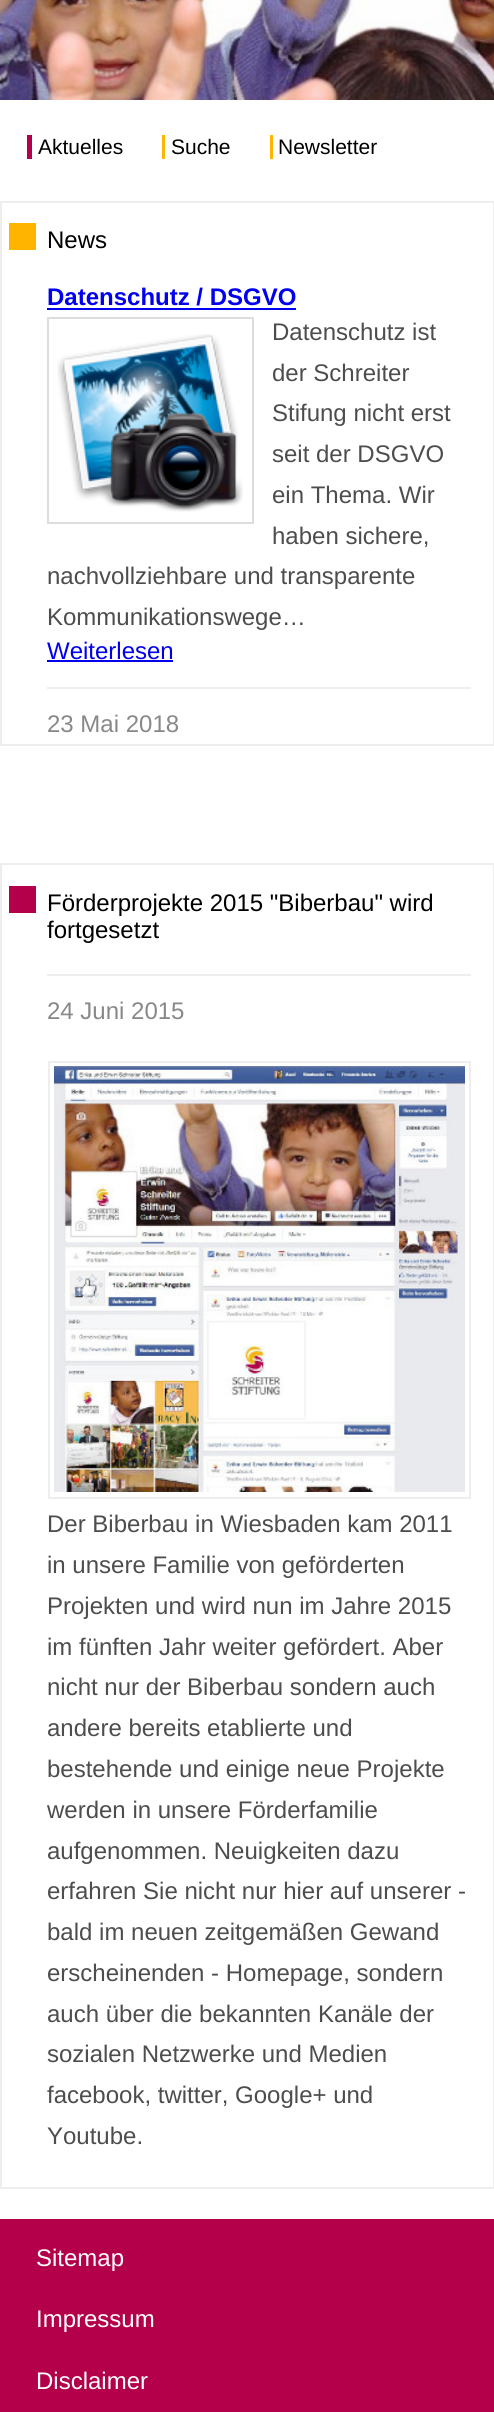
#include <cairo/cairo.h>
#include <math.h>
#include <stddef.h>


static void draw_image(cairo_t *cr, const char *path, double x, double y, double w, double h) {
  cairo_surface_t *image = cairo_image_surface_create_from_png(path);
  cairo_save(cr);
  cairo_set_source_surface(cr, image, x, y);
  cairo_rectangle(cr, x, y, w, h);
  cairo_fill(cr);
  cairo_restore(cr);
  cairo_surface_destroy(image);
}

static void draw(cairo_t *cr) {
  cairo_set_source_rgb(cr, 1, 1, 1);
  cairo_paint(cr);
  draw_image(cr, "images/1.png", 0, 0, 494, 100);
  cairo_set_source_rgb(cr, 180 / 255.0, 0, 74 / 255.0);
  cairo_rectangle(cr, 27, 135, 5, 24);
  cairo_fill(cr);
  cairo_set_source_rgb(cr, 1, 180 / 255.0, 0);
  cairo_rectangle(cr, 162, 135, 3, 24);
  cairo_fill(cr);
  cairo_rectangle(cr, 270, 135, 3, 24);
  cairo_fill(cr);
  cairo_rectangle(cr, 9, 223, 27, 27);
  cairo_fill(cr);
  cairo_rectangle(cr, 1, 202, 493, 543);
  cairo_set_source_rgb(cr, 238 / 255.0, 238 / 255.0, 238 / 255.0);
  cairo_stroke(cr);
  cairo_set_source_rgb(cr, 0, 0, 238 / 255.0);
  cairo_rectangle(cr, 47, 308, 249, 2);
  cairo_fill(cr);
  cairo_rectangle(cr, 48, 318, 205, 205);
  cairo_set_source_rgb(cr, 221 / 255.0, 221 / 255.0, 221 / 255.0);
  cairo_stroke(cr);
  draw_image(cr, "images/2.png", 57, 334, 186, 178);
  cairo_set_source_rgb(cr, 0, 0, 238 / 255.0);
  cairo_rectangle(cr, 47, 660, 126, 2);
  cairo_fill(cr);
  cairo_set_source_rgb(cr, 238 / 255.0, 238 / 255.0, 238 / 255.0);
  cairo_rectangle(cr, 47, 687, 424, 2);
  cairo_fill(cr);
  cairo_set_source_rgb(cr, 180 / 255.0, 0, 74 / 255.0);
  cairo_rectangle(cr, 9, 886, 27, 27);
  cairo_fill(cr);
  cairo_rectangle(cr, 1, 864, 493, 1324);
  cairo_set_source_rgb(cr, 238 / 255.0, 238 / 255.0, 238 / 255.0);
  cairo_stroke(cr);
  cairo_rectangle(cr, 47, 974, 424, 2);
  cairo_fill(cr);
  cairo_rectangle(cr, 49, 1062, 421, 436);
  cairo_stroke(cr);
  draw_image(cr, "images/3.png", 54, 1066, 411, 426);
  cairo_set_source_rgb(cr, 180 / 255.0, 0, 74 / 255.0);
  cairo_rectangle(cr, 0, 2219, 494, 193);
  cairo_fill(cr);
  cairo_select_font_face(cr, "Liberation Sans", CAIRO_FONT_SLANT_NORMAL, CAIRO_FONT_WEIGHT_NORMAL);
  cairo_set_font_size(cr, 21);
  cairo_set_source_rgb(cr, 0, 0, 0);
  cairo_move_to(cr, 38, 154);
  cairo_show_text(cr, "Aktuelles");
  cairo_move_to(cr, 171, 154);
  cairo_show_text(cr, "Suche");
  cairo_move_to(cr, 278, 154);
  cairo_show_text(cr, "Newsletter");
  cairo_set_font_size(cr, 24);
  cairo_move_to(cr, 47, 248);
  cairo_show_text(cr, "News");
  cairo_select_font_face(cr, "Liberation Sans", CAIRO_FONT_SLANT_NORMAL, CAIRO_FONT_WEIGHT_BOLD);
  cairo_set_source_rgb(cr, 0, 0, 238 / 255.0);
  cairo_move_to(cr, 47, 305);
  cairo_show_text(cr, "Datenschutz / DSGVO");
  cairo_select_font_face(cr, "Liberation Sans", CAIRO_FONT_SLANT_NORMAL, CAIRO_FONT_WEIGHT_NORMAL);
  cairo_set_source_rgb(cr, 77 / 255.0, 77 / 255.0, 77 / 255.0);
  cairo_move_to(cr, 272, 340);
  cairo_show_text(cr, "Datenschutz ist");
  cairo_move_to(cr, 272, 381);
  cairo_show_text(cr, "der Schreiter");
  cairo_move_to(cr, 272, 421);
  cairo_show_text(cr, "Stifung nicht erst");
  cairo_move_to(cr, 272, 462);
  cairo_show_text(cr, "seit der DSGVO");
  cairo_move_to(cr, 272, 503);
  cairo_show_text(cr, "ein Thema. Wir");
  cairo_move_to(cr, 272, 544);
  cairo_show_text(cr, "haben sichere,");
  cairo_move_to(cr, 47, 584);
  cairo_show_text(cr, "nachvollziehbare und transparente");
  cairo_move_to(cr, 47, 625);
  cairo_show_text(cr, "Kommunikationswege…");
  cairo_set_source_rgb(cr, 0, 0, 238 / 255.0);
  cairo_move_to(cr, 47, 659);
  cairo_show_text(cr, "Weiterlesen");
  cairo_set_source_rgb(cr, 136 / 255.0, 136 / 255.0, 136 / 255.0);
  cairo_move_to(cr, 47, 732);
  cairo_show_text(cr, "23 Mai 2018");
  cairo_set_source_rgb(cr, 0, 0, 0);
  cairo_move_to(cr, 47, 911);
  cairo_show_text(cr, "Förderprojekte 2015 \"Biberbau\" wird");
  cairo_move_to(cr, 47, 938);
  cairo_show_text(cr, "fortgesetzt");
  cairo_set_source_rgb(cr, 136 / 255.0, 136 / 255.0, 136 / 255.0);
  cairo_move_to(cr, 47, 1019);
  cairo_show_text(cr, "24 Juni 2015");
  cairo_set_source_rgb(cr, 77 / 255.0, 77 / 255.0, 77 / 255.0);
  cairo_move_to(cr, 47, 1532);
  cairo_show_text(cr, "Der Biberbau in Wiesbaden kam 2011");
  cairo_move_to(cr, 47, 1573);
  cairo_show_text(cr, "in unsere Familie von geförderten");
  cairo_move_to(cr, 47, 1614);
  cairo_show_text(cr, "Projekten und wird nun im Jahre 2015");
  cairo_move_to(cr, 47, 1655);
  cairo_show_text(cr, "im fünften Jahr weiter gefördert. Aber");
  cairo_move_to(cr, 47, 1695);
  cairo_show_text(cr, "nicht nur der Biberbau sondern auch");
  cairo_move_to(cr, 47, 1736);
  cairo_show_text(cr, "andere bereits etablierte und");
  cairo_move_to(cr, 47, 1777);
  cairo_show_text(cr, "bestehende und einige neue Projekte");
  cairo_move_to(cr, 47, 1818);
  cairo_show_text(cr, "werden in unsere Förderfamilie");
  cairo_move_to(cr, 47, 1859);
  cairo_show_text(cr, "aufgenommen. Neuigkeiten dazu");
  cairo_move_to(cr, 47, 1899);
  cairo_show_text(cr, "erfahren Sie nicht nur hier auf unserer -");
  cairo_move_to(cr, 47, 1940);
  cairo_show_text(cr, "bald im neuen zeitgemäßen Gewand");
  cairo_move_to(cr, 47, 1981);
  cairo_show_text(cr, "erscheinenden - Homepage, sondern");
  cairo_move_to(cr, 47, 2022);
  cairo_show_text(cr, "auch über die bekannten Kanäle der");
  cairo_move_to(cr, 47, 2062);
  cairo_show_text(cr, "sozialen Netzwerke und Medien");
  cairo_move_to(cr, 47, 2103);
  cairo_show_text(cr, "facebook, twitter, Google+ und");
  cairo_move_to(cr, 47, 2144);
  cairo_show_text(cr, "Youtube.");
  cairo_set_source_rgb(cr, 1, 1, 1);
  cairo_move_to(cr, 36, 2266);
  cairo_show_text(cr, "Sitemap");
  cairo_move_to(cr, 36, 2327);
  cairo_show_text(cr, "Impressum");
  cairo_move_to(cr, 36, 2389);
  cairo_show_text(cr, "Disclaimer");
}

int main(void) {
  cairo_surface_t *surface = cairo_image_surface_create(CAIRO_FORMAT_RGB24, 494, 2412);
  cairo_t *cr = cairo_create(surface);
  cairo_font_options_t *options = cairo_font_options_create();
  cairo_font_options_set_hint_metrics(options, CAIRO_HINT_METRICS_OFF);
  cairo_font_options_set_hint_style(options, CAIRO_HINT_STYLE_NONE);
  cairo_set_font_options(cr, options);
  cairo_set_miter_limit(cr, 4);
  draw(cr);
  cairo_surface_write_to_png(surface, "out.png");
  cairo_font_options_destroy(options);
  cairo_destroy(cr);
  cairo_surface_destroy(surface);
  return 0;
}
